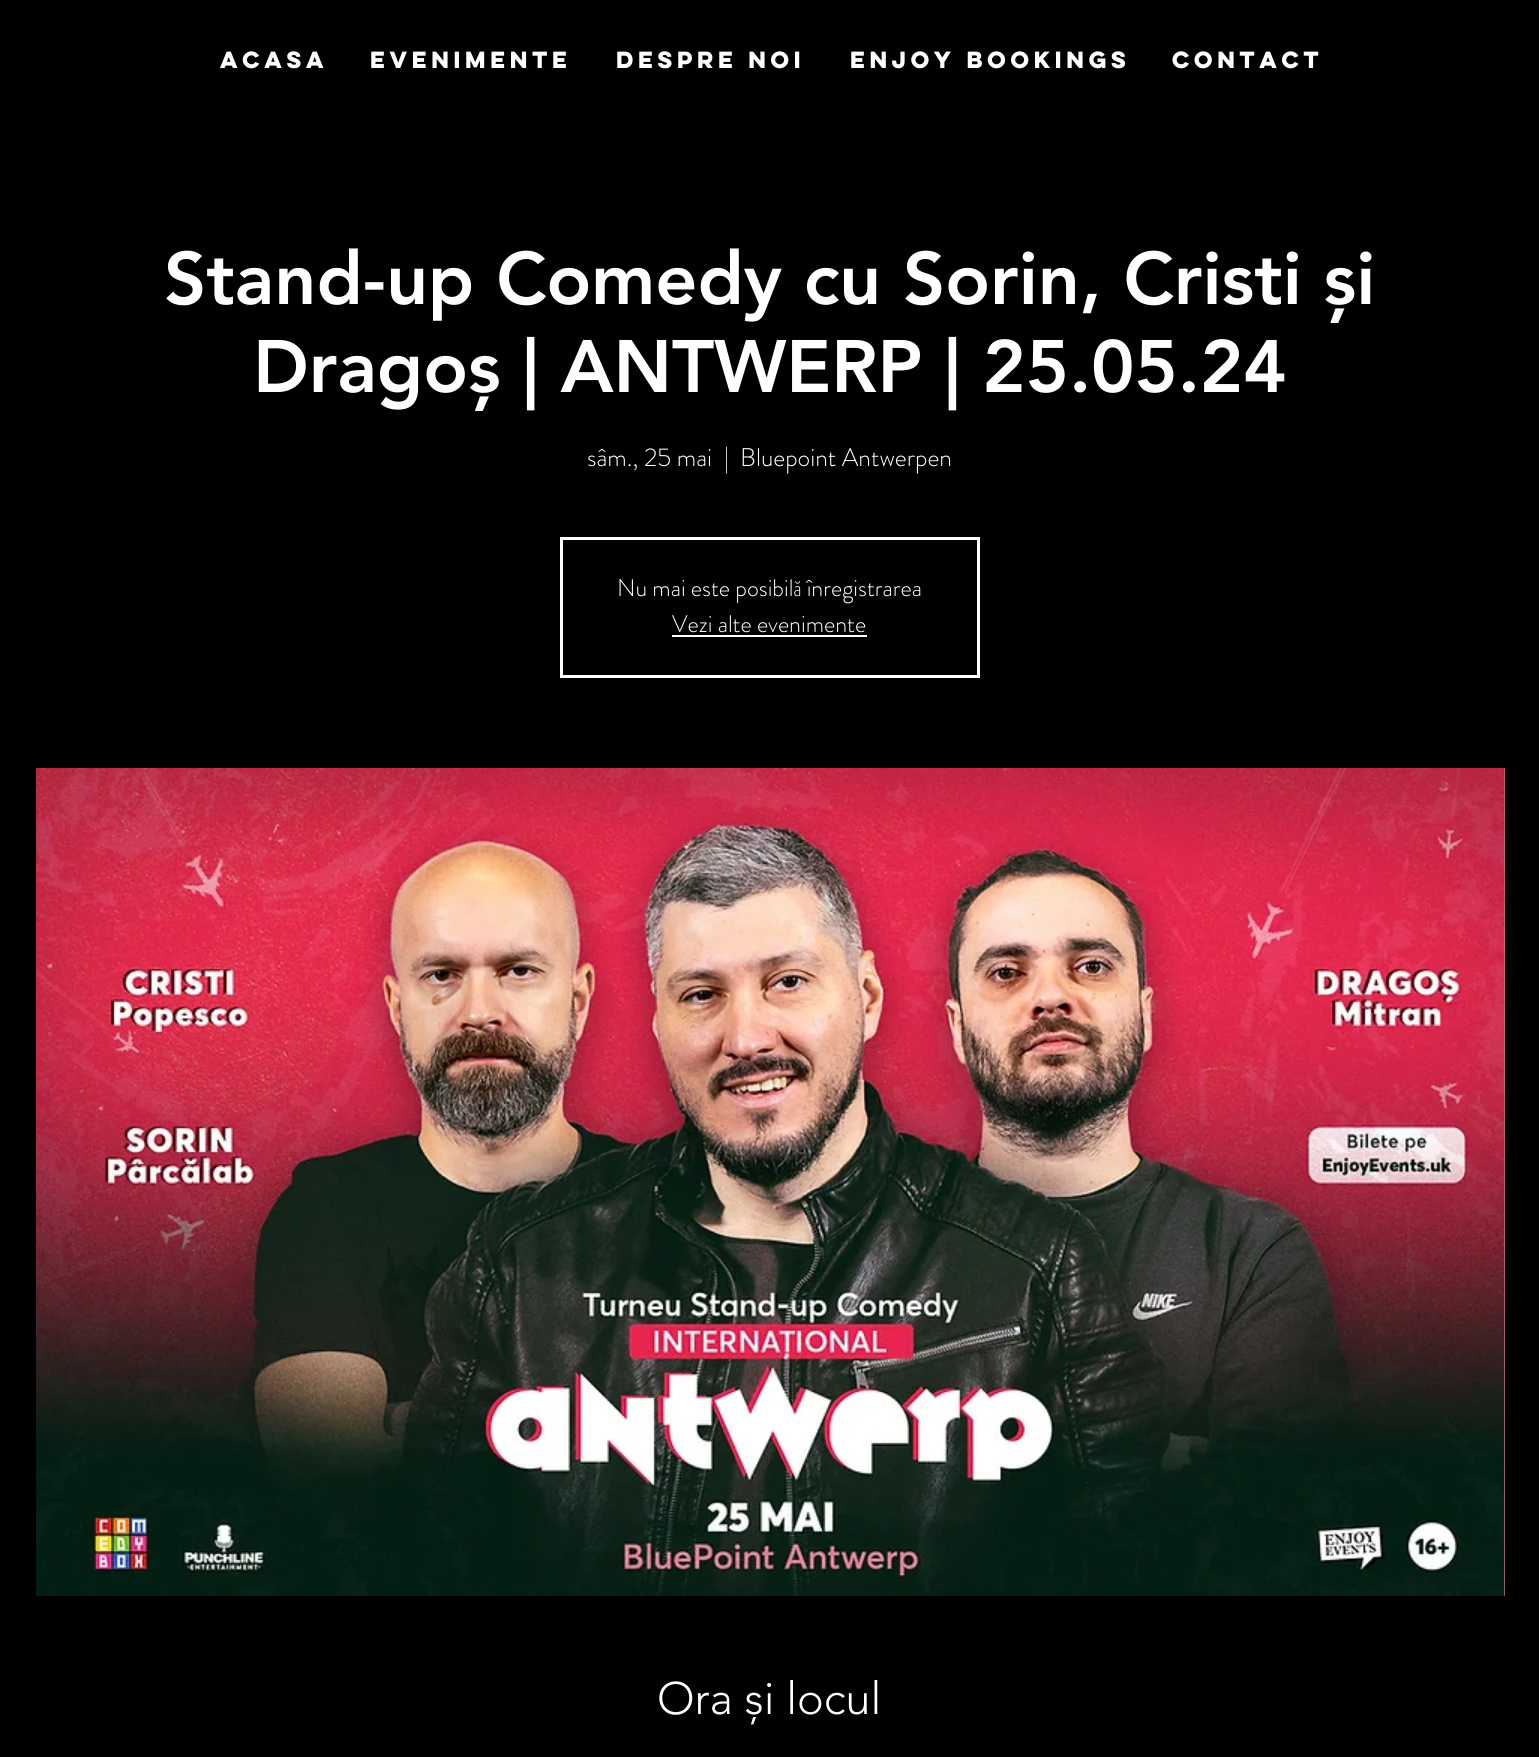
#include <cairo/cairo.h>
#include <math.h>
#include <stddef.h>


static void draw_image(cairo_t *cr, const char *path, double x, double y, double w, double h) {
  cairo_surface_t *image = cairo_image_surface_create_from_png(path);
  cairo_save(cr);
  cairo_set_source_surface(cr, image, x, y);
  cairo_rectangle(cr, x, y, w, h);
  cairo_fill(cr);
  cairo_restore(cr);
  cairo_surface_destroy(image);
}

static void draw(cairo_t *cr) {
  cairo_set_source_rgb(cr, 0, 0, 0);
  cairo_paint(cr);
  cairo_rectangle(cr, 561.5, 538.5, 417, 138);
  cairo_set_source_rgb(cr, 1, 1, 1);
  cairo_set_line_width(cr, 3);
  cairo_stroke(cr);
  cairo_rectangle(cr, 672, 635, 195, 2);
  cairo_fill(cr);
  cairo_set_source_rgb(cr, 191 / 255.0, 119 / 255.0, 138 / 255.0);
  cairo_rectangle(cr, 1504, 768, 1, 828);
  cairo_fill(cr);
  draw_image(cr, "images/1.png", 36, 768, 1469, 828);
  cairo_select_font_face(cr, "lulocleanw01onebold", CAIRO_FONT_SLANT_NORMAL, CAIRO_FONT_WEIGHT_BOLD);
  cairo_set_font_size(cr, 21);
  cairo_set_source_rgb(cr, 1, 1, 1);
  cairo_move_to(cr, 220, 68);
  cairo_show_text(cr, "ACASA");
  cairo_move_to(cr, 370, 68);
  cairo_show_text(cr, "EVENIMENTE");
  cairo_move_to(cr, 616, 68);
  cairo_show_text(cr, "DESPRE NOI");
  cairo_move_to(cr, 850, 68);
  cairo_show_text(cr, "ENJOY BOOKINGS");
  cairo_move_to(cr, 1172, 68);
  cairo_show_text(cr, "CONTACT");
  cairo_select_font_face(cr, "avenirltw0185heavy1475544 Black", CAIRO_FONT_SLANT_NORMAL, CAIRO_FONT_WEIGHT_NORMAL);
  cairo_set_font_size(cr, 73.5);
  cairo_move_to(cr, 164, 304);
  cairo_show_text(cr, "Stand-up Comedy cu Sorin, Cristi și");
  cairo_move_to(cr, 253, 392);
  cairo_show_text(cr, "Dragoș | ANTWERP | 25.05.24");
  cairo_select_font_face(cr, "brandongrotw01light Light", CAIRO_FONT_SLANT_NORMAL, CAIRO_FONT_WEIGHT_NORMAL);
  cairo_set_font_size(cr, 25.5);
  cairo_move_to(cr, 587, 466);
  cairo_show_text(cr, "sâm., 25 mai");
  cairo_move_to(cr, 724, 466);
  cairo_show_text(cr, "|");
  cairo_move_to(cr, 740, 466);
  cairo_show_text(cr, "Bluepoint Antwerpen");
  cairo_set_font_size(cr, 24);
  cairo_move_to(cr, 617, 596);
  cairo_show_text(cr, "Nu mai este posibilă înregistrarea");
  cairo_move_to(cr, 672, 632);
  cairo_show_text(cr, "Vezi alte evenimente");
  cairo_select_font_face(cr, "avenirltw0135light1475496 Light", CAIRO_FONT_SLANT_NORMAL, CAIRO_FONT_WEIGHT_NORMAL);
  cairo_set_font_size(cr, 45);
  cairo_move_to(cr, 657, 1714);
  cairo_show_text(cr, "Ora și locul");
}

int main(void) {
  cairo_surface_t *surface = cairo_image_surface_create(CAIRO_FORMAT_RGB24, 1539, 1757);
  cairo_t *cr = cairo_create(surface);
  cairo_font_options_t *options = cairo_font_options_create();
  cairo_font_options_set_hint_metrics(options, CAIRO_HINT_METRICS_OFF);
  cairo_font_options_set_hint_style(options, CAIRO_HINT_STYLE_NONE);
  cairo_set_font_options(cr, options);
  cairo_set_miter_limit(cr, 4);
  draw(cr);
  cairo_surface_write_to_png(surface, "out.png");
  cairo_font_options_destroy(options);
  cairo_destroy(cr);
  cairo_surface_destroy(surface);
  return 0;
}
